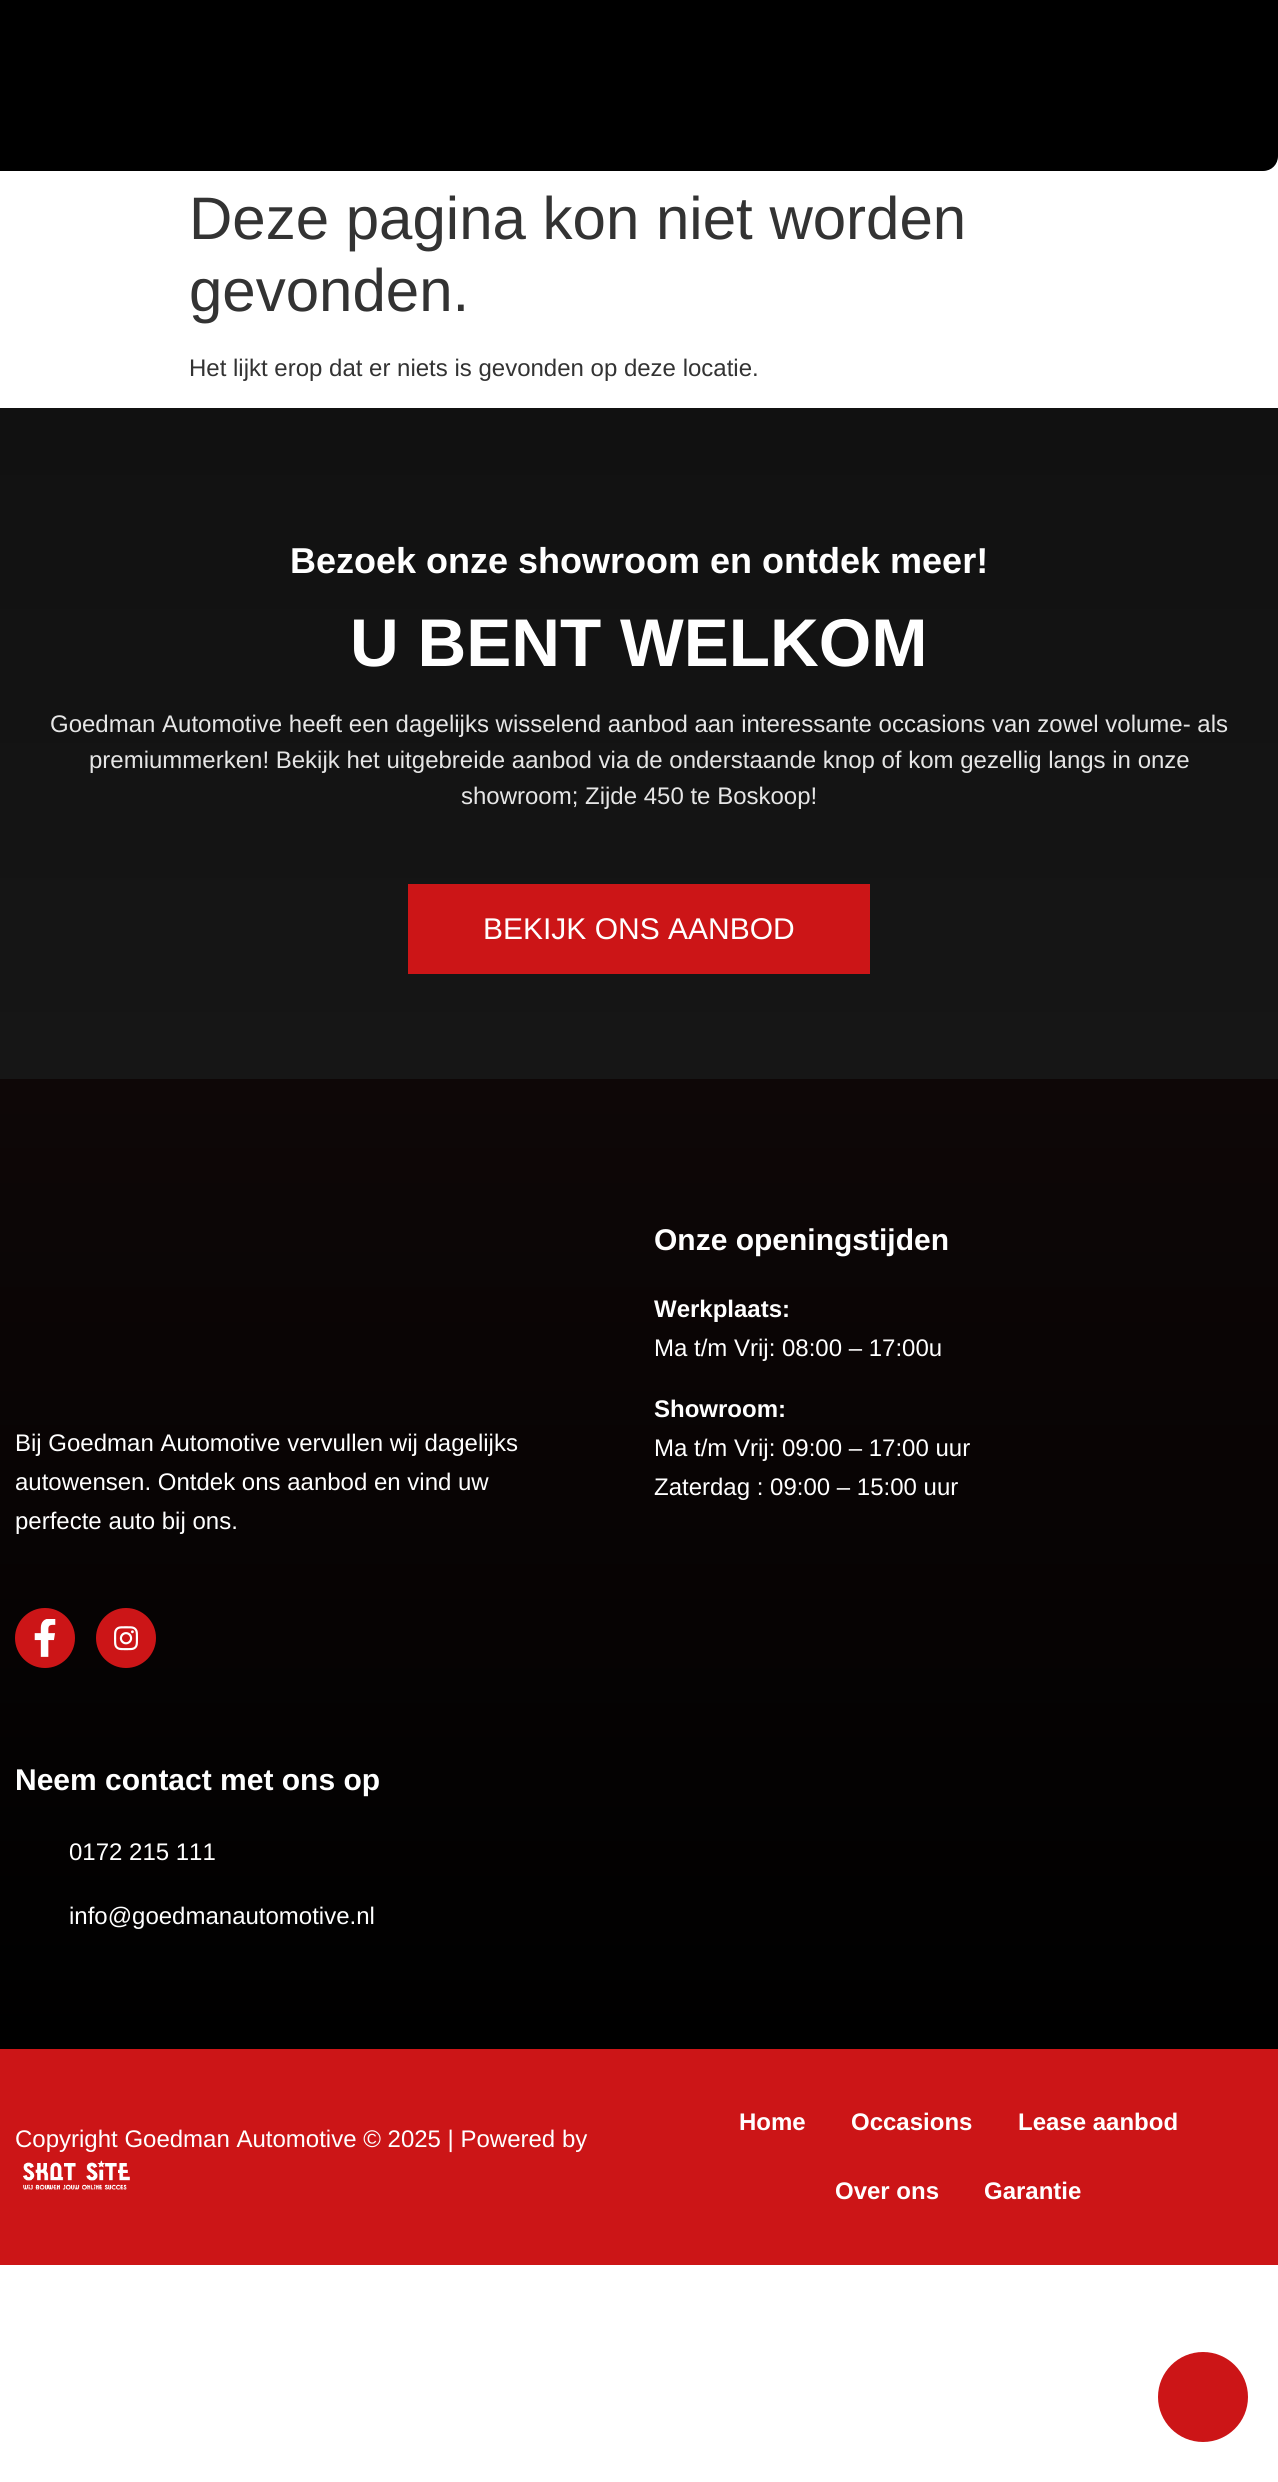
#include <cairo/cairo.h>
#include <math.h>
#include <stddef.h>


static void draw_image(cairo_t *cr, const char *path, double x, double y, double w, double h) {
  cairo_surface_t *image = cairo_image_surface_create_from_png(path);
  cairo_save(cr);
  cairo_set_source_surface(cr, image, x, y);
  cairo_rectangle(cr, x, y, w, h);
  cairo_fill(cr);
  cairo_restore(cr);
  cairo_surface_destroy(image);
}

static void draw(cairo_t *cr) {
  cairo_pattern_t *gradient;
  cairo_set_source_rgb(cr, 1, 1, 1);
  cairo_paint(cr);
  cairo_set_source_rgb(cr, 0, 0, 0);
  cairo_new_path(cr);
  cairo_move_to(cr, 0, 0);
  cairo_line_to(cr, 1278, 0);
  cairo_line_to(cr, 1278, 156);
  cairo_curve_to(cr, 1278, 164.5, 1271.5, 171, 1263, 171);
  cairo_line_to(cr, 0, 171);
  cairo_close_path(cr);
  cairo_fill(cr);
  gradient = cairo_pattern_create_linear(639, 408, 639, 1079);
  cairo_pattern_add_color_stop_rgba(gradient, 0, 17 / 255.0, 17 / 255.0, 17 / 255.0, 1);
  cairo_pattern_add_color_stop_rgba(gradient, 1, 22 / 255.0, 22 / 255.0, 22 / 255.0, 1);
  cairo_set_source(cr, gradient);
  cairo_pattern_destroy(gradient);
  cairo_rectangle(cr, 0, 408, 1278, 671);
  cairo_fill(cr);
  cairo_set_source_rgb(cr, 204 / 255.0, 21 / 255.0, 23 / 255.0);
  cairo_rectangle(cr, 408, 884, 462, 90);
  cairo_fill(cr);
  gradient = cairo_pattern_create_linear(639, 1079, 639, 2049);
  cairo_pattern_add_color_stop_rgba(gradient, 0, 14 / 255.0, 7 / 255.0, 7 / 255.0, 1);
  cairo_pattern_add_color_stop_rgba(gradient, 1, 0, 0, 0, 1);
  cairo_set_source(cr, gradient);
  cairo_pattern_destroy(gradient);
  cairo_rectangle(cr, 0, 1079, 1278, 970);
  cairo_fill(cr);
  cairo_set_source_rgb(cr, 204 / 255.0, 21 / 255.0, 23 / 255.0);
  cairo_arc(cr, 45, 1638, 29, 0, 2 * M_PI);
  cairo_fill_preserve(cr);
  cairo_stroke(cr);
  draw_image(cr, "images/1.png", 34, 1619, 22, 38);
  cairo_arc(cr, 126, 1638, 29, 0, 2 * M_PI);
  cairo_fill_preserve(cr);
  cairo_stroke(cr);
  draw_image(cr, "images/2.png", 114, 1626, 24, 25);
  cairo_rectangle(cr, 0, 2049, 1278, 216);
  cairo_fill(cr);
  draw_image(cr, "images/3.png", 23, 2160, 107, 30);
  cairo_arc(cr, 1203, 2397, 45, 0, 2 * M_PI);
  cairo_fill(cr);
  cairo_select_font_face(cr, "Liberation Sans", CAIRO_FONT_SLANT_NORMAL, CAIRO_FONT_WEIGHT_NORMAL);
  cairo_set_font_size(cr, 60);
  cairo_set_source_rgb(cr, 51 / 255.0, 51 / 255.0, 51 / 255.0);
  cairo_move_to(cr, 189, 239);
  cairo_show_text(cr, "Deze pagina kon niet worden");
  cairo_move_to(cr, 189, 311);
  cairo_show_text(cr, "gevonden.");
  cairo_set_font_size(cr, 24);
  cairo_move_to(cr, 189, 376);
  cairo_show_text(cr, "Het lijkt erop dat er niets is gevonden op deze locatie.");
  cairo_select_font_face(cr, "Liberation Sans", CAIRO_FONT_SLANT_NORMAL, CAIRO_FONT_WEIGHT_BOLD);
  cairo_set_font_size(cr, 36);
  cairo_set_source_rgb(cr, 1, 1, 1);
  cairo_move_to(cr, 290, 573);
  cairo_show_text(cr, "Bezoek onze showroom en ontdek meer!");
  cairo_set_font_size(cr, 67.5);
  cairo_move_to(cr, 350, 666);
  cairo_show_text(cr, "U BENT WELKOM");
  cairo_select_font_face(cr, "Liberation Sans", CAIRO_FONT_SLANT_NORMAL, CAIRO_FONT_WEIGHT_NORMAL);
  cairo_set_font_size(cr, 24);
  cairo_set_source_rgb(cr, 230 / 255.0, 230 / 255.0, 230 / 255.0);
  cairo_move_to(cr, 50, 732);
  cairo_show_text(cr, "Goedman Automotive heeft een dagelijks wisselend aanbod aan interessante occasions van zowel volume- als");
  cairo_move_to(cr, 89, 768);
  cairo_show_text(cr, "premiummerken! Bekijk het uitgebreide aanbod via de onderstaande knop of kom gezellig langs in onze");
  cairo_move_to(cr, 461, 804);
  cairo_show_text(cr, "showroom; Zijde 450 te Boskoop!");
  cairo_set_font_size(cr, 30);
  cairo_set_source_rgb(cr, 1, 1, 1);
  cairo_move_to(cr, 483, 939);
  cairo_show_text(cr, "BEKIJK ONS AANBOD");
  cairo_set_font_size(cr, 24);
  cairo_move_to(cr, 15, 1451);
  cairo_show_text(cr, "Bij Goedman Automotive vervullen wij dagelijks");
  cairo_move_to(cr, 15, 1490);
  cairo_show_text(cr, "autowensen. Ontdek ons aanbod en vind uw");
  cairo_move_to(cr, 15, 1529);
  cairo_show_text(cr, "perfecte auto bij ons.");
  cairo_select_font_face(cr, "Liberation Sans", CAIRO_FONT_SLANT_NORMAL, CAIRO_FONT_WEIGHT_BOLD);
  cairo_set_font_size(cr, 30);
  cairo_move_to(cr, 654, 1250);
  cairo_show_text(cr, "Onze openingstijden");
  cairo_set_font_size(cr, 24);
  cairo_move_to(cr, 654, 1317);
  cairo_show_text(cr, "Werkplaats:");
  cairo_select_font_face(cr, "Liberation Sans", CAIRO_FONT_SLANT_NORMAL, CAIRO_FONT_WEIGHT_NORMAL);
  cairo_move_to(cr, 654, 1356);
  cairo_show_text(cr, "Ma t/m Vrij: 08:00 – 17:00u");
  cairo_select_font_face(cr, "Liberation Sans", CAIRO_FONT_SLANT_NORMAL, CAIRO_FONT_WEIGHT_BOLD);
  cairo_move_to(cr, 654, 1417);
  cairo_show_text(cr, "Showroom:");
  cairo_select_font_face(cr, "Liberation Sans", CAIRO_FONT_SLANT_NORMAL, CAIRO_FONT_WEIGHT_NORMAL);
  cairo_move_to(cr, 654, 1456);
  cairo_show_text(cr, "Ma t/m Vrij: 09:00 – 17:00 uur");
  cairo_move_to(cr, 654, 1495);
  cairo_show_text(cr, "Zaterdag : 09:00 – 15:00 uur");
  cairo_select_font_face(cr, "Liberation Sans", CAIRO_FONT_SLANT_NORMAL, CAIRO_FONT_WEIGHT_BOLD);
  cairo_set_font_size(cr, 30);
  cairo_move_to(cr, 15, 1790);
  cairo_show_text(cr, "Neem contact met ons op");
  cairo_select_font_face(cr, "Liberation Sans", CAIRO_FONT_SLANT_NORMAL, CAIRO_FONT_WEIGHT_NORMAL);
  cairo_set_font_size(cr, 24);
  cairo_move_to(cr, 69, 1860);
  cairo_show_text(cr, "0172 215 111");
  cairo_move_to(cr, 69, 1924);
  cairo_show_text(cr, "info@goedmanautomotive.nl");
  cairo_move_to(cr, 15, 2147);
  cairo_show_text(cr, "Copyright Goedman Automotive © 2025 | Powered by");
  cairo_select_font_face(cr, "Liberation Sans", CAIRO_FONT_SLANT_NORMAL, CAIRO_FONT_WEIGHT_BOLD);
  cairo_move_to(cr, 739, 2130);
  cairo_show_text(cr, "Home");
  cairo_move_to(cr, 851, 2130);
  cairo_show_text(cr, "Occasions");
  cairo_move_to(cr, 1018, 2130);
  cairo_show_text(cr, "Lease aanbod");
  cairo_move_to(cr, 835, 2199);
  cairo_show_text(cr, "Over ons");
  cairo_move_to(cr, 984, 2199);
  cairo_show_text(cr, "Garantie");
}

int main(void) {
  cairo_surface_t *surface = cairo_image_surface_create(CAIRO_FORMAT_RGB24, 1278, 2482);
  cairo_t *cr = cairo_create(surface);
  cairo_font_options_t *options = cairo_font_options_create();
  cairo_font_options_set_hint_metrics(options, CAIRO_HINT_METRICS_OFF);
  cairo_font_options_set_hint_style(options, CAIRO_HINT_STYLE_NONE);
  cairo_set_font_options(cr, options);
  cairo_set_miter_limit(cr, 4);
  draw(cr);
  cairo_surface_write_to_png(surface, "out.png");
  cairo_font_options_destroy(options);
  cairo_destroy(cr);
  cairo_surface_destroy(surface);
  return 0;
}
